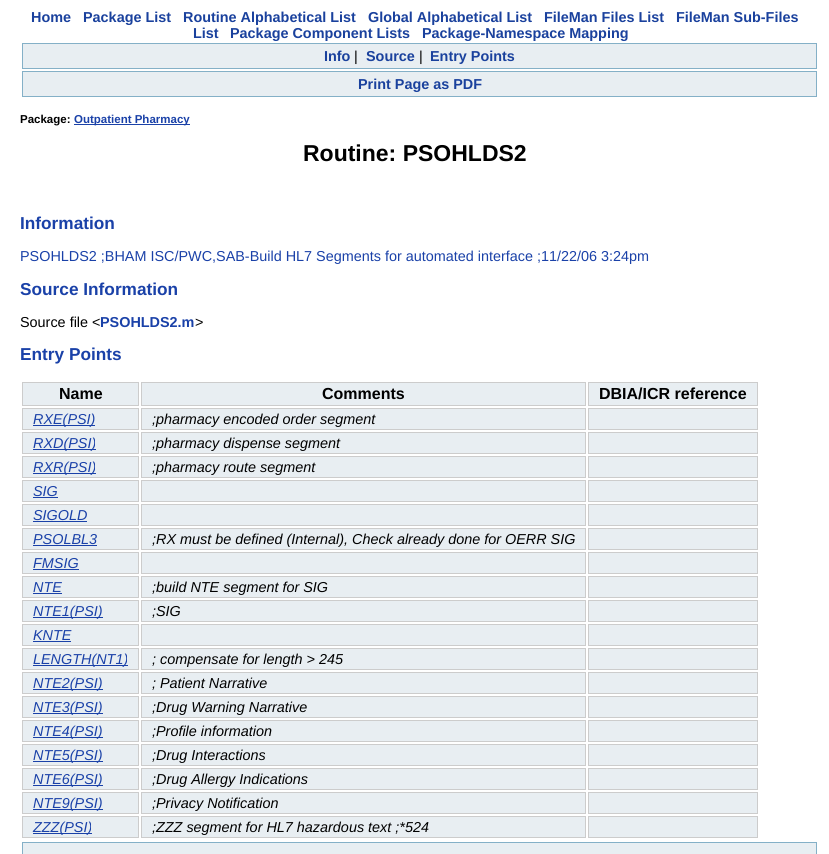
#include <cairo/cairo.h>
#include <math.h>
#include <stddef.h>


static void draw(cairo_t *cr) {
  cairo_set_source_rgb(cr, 1, 1, 1);
  cairo_paint(cr);
  cairo_set_source_rgb(cr, 232 / 255.0, 238 / 255.0, 242 / 255.0);
  cairo_rectangle(cr, 22.5, 43.5, 794, 25);
  cairo_fill_preserve(cr);
  cairo_set_source_rgb(cr, 132 / 255.0, 176 / 255.0, 199 / 255.0);
  cairo_set_line_width(cr, 1);
  cairo_stroke(cr);
  cairo_set_source_rgb(cr, 232 / 255.0, 238 / 255.0, 242 / 255.0);
  cairo_rectangle(cr, 22.5, 71.5, 794, 25);
  cairo_fill_preserve(cr);
  cairo_set_source_rgb(cr, 132 / 255.0, 176 / 255.0, 199 / 255.0);
  cairo_stroke(cr);
  cairo_set_source_rgb(cr, 26 / 255.0, 65 / 255.0, 168 / 255.0);
  cairo_rectangle(cr, 74, 124, 116, 1);
  cairo_fill(cr);
  cairo_set_source_rgb(cr, 232 / 255.0, 238 / 255.0, 242 / 255.0);
  cairo_rectangle(cr, 22.5, 382.5, 116, 23);
  cairo_fill_preserve(cr);
  cairo_set_source_rgb(cr, 204 / 255.0, 204 / 255.0, 204 / 255.0);
  cairo_stroke(cr);
  cairo_set_source_rgb(cr, 232 / 255.0, 238 / 255.0, 242 / 255.0);
  cairo_rectangle(cr, 141.5, 382.5, 444, 23);
  cairo_fill_preserve(cr);
  cairo_set_source_rgb(cr, 204 / 255.0, 204 / 255.0, 204 / 255.0);
  cairo_stroke(cr);
  cairo_set_source_rgb(cr, 232 / 255.0, 238 / 255.0, 242 / 255.0);
  cairo_rectangle(cr, 588.5, 382.5, 169, 23);
  cairo_fill_preserve(cr);
  cairo_set_source_rgb(cr, 204 / 255.0, 204 / 255.0, 204 / 255.0);
  cairo_stroke(cr);
  cairo_set_source_rgb(cr, 232 / 255.0, 238 / 255.0, 242 / 255.0);
  cairo_rectangle(cr, 22.5, 408.5, 116, 21);
  cairo_fill_preserve(cr);
  cairo_set_source_rgb(cr, 204 / 255.0, 204 / 255.0, 204 / 255.0);
  cairo_stroke(cr);
  cairo_set_source_rgb(cr, 26 / 255.0, 65 / 255.0, 168 / 255.0);
  cairo_rectangle(cr, 33, 425, 62, 1);
  cairo_fill(cr);
  cairo_set_source_rgb(cr, 232 / 255.0, 238 / 255.0, 242 / 255.0);
  cairo_rectangle(cr, 141.5, 408.5, 444, 21);
  cairo_fill_preserve(cr);
  cairo_set_source_rgb(cr, 204 / 255.0, 204 / 255.0, 204 / 255.0);
  cairo_stroke(cr);
  cairo_set_source_rgb(cr, 232 / 255.0, 238 / 255.0, 242 / 255.0);
  cairo_rectangle(cr, 588.5, 408.5, 169, 21);
  cairo_fill_preserve(cr);
  cairo_set_source_rgb(cr, 204 / 255.0, 204 / 255.0, 204 / 255.0);
  cairo_stroke(cr);
  cairo_set_source_rgb(cr, 232 / 255.0, 238 / 255.0, 242 / 255.0);
  cairo_rectangle(cr, 22.5, 432.5, 116, 21);
  cairo_fill_preserve(cr);
  cairo_set_source_rgb(cr, 204 / 255.0, 204 / 255.0, 204 / 255.0);
  cairo_stroke(cr);
  cairo_set_source_rgb(cr, 26 / 255.0, 65 / 255.0, 168 / 255.0);
  cairo_rectangle(cr, 33, 449, 63, 1);
  cairo_fill(cr);
  cairo_set_source_rgb(cr, 232 / 255.0, 238 / 255.0, 242 / 255.0);
  cairo_rectangle(cr, 141.5, 432.5, 444, 21);
  cairo_fill_preserve(cr);
  cairo_set_source_rgb(cr, 204 / 255.0, 204 / 255.0, 204 / 255.0);
  cairo_stroke(cr);
  cairo_set_source_rgb(cr, 232 / 255.0, 238 / 255.0, 242 / 255.0);
  cairo_rectangle(cr, 588.5, 432.5, 169, 21);
  cairo_fill_preserve(cr);
  cairo_set_source_rgb(cr, 204 / 255.0, 204 / 255.0, 204 / 255.0);
  cairo_stroke(cr);
  cairo_set_source_rgb(cr, 232 / 255.0, 238 / 255.0, 242 / 255.0);
  cairo_rectangle(cr, 22.5, 456.5, 116, 21);
  cairo_fill_preserve(cr);
  cairo_set_source_rgb(cr, 204 / 255.0, 204 / 255.0, 204 / 255.0);
  cairo_stroke(cr);
  cairo_set_source_rgb(cr, 26 / 255.0, 65 / 255.0, 168 / 255.0);
  cairo_rectangle(cr, 33, 473, 63, 1);
  cairo_fill(cr);
  cairo_set_source_rgb(cr, 232 / 255.0, 238 / 255.0, 242 / 255.0);
  cairo_rectangle(cr, 141.5, 456.5, 444, 21);
  cairo_fill_preserve(cr);
  cairo_set_source_rgb(cr, 204 / 255.0, 204 / 255.0, 204 / 255.0);
  cairo_stroke(cr);
  cairo_set_source_rgb(cr, 232 / 255.0, 238 / 255.0, 242 / 255.0);
  cairo_rectangle(cr, 588.5, 456.5, 169, 21);
  cairo_fill_preserve(cr);
  cairo_set_source_rgb(cr, 204 / 255.0, 204 / 255.0, 204 / 255.0);
  cairo_stroke(cr);
  cairo_set_source_rgb(cr, 232 / 255.0, 238 / 255.0, 242 / 255.0);
  cairo_rectangle(cr, 22.5, 480.5, 116, 21);
  cairo_fill_preserve(cr);
  cairo_set_source_rgb(cr, 204 / 255.0, 204 / 255.0, 204 / 255.0);
  cairo_stroke(cr);
  cairo_set_source_rgb(cr, 26 / 255.0, 65 / 255.0, 168 / 255.0);
  cairo_rectangle(cr, 33, 497, 25, 1);
  cairo_fill(cr);
  cairo_set_source_rgb(cr, 232 / 255.0, 238 / 255.0, 242 / 255.0);
  cairo_rectangle(cr, 141.5, 480.5, 444, 21);
  cairo_fill_preserve(cr);
  cairo_set_source_rgb(cr, 204 / 255.0, 204 / 255.0, 204 / 255.0);
  cairo_stroke(cr);
  cairo_set_source_rgb(cr, 232 / 255.0, 238 / 255.0, 242 / 255.0);
  cairo_rectangle(cr, 588.5, 480.5, 169, 21);
  cairo_fill_preserve(cr);
  cairo_set_source_rgb(cr, 204 / 255.0, 204 / 255.0, 204 / 255.0);
  cairo_stroke(cr);
  cairo_set_source_rgb(cr, 232 / 255.0, 238 / 255.0, 242 / 255.0);
  cairo_rectangle(cr, 22.5, 504.5, 116, 21);
  cairo_fill_preserve(cr);
  cairo_set_source_rgb(cr, 204 / 255.0, 204 / 255.0, 204 / 255.0);
  cairo_stroke(cr);
  cairo_set_source_rgb(cr, 26 / 255.0, 65 / 255.0, 168 / 255.0);
  cairo_rectangle(cr, 33, 521, 54, 1);
  cairo_fill(cr);
  cairo_set_source_rgb(cr, 232 / 255.0, 238 / 255.0, 242 / 255.0);
  cairo_rectangle(cr, 141.5, 504.5, 444, 21);
  cairo_fill_preserve(cr);
  cairo_set_source_rgb(cr, 204 / 255.0, 204 / 255.0, 204 / 255.0);
  cairo_stroke(cr);
  cairo_set_source_rgb(cr, 232 / 255.0, 238 / 255.0, 242 / 255.0);
  cairo_rectangle(cr, 588.5, 504.5, 169, 21);
  cairo_fill_preserve(cr);
  cairo_set_source_rgb(cr, 204 / 255.0, 204 / 255.0, 204 / 255.0);
  cairo_stroke(cr);
  cairo_set_source_rgb(cr, 232 / 255.0, 238 / 255.0, 242 / 255.0);
  cairo_rectangle(cr, 22.5, 528.5, 116, 21);
  cairo_fill_preserve(cr);
  cairo_set_source_rgb(cr, 204 / 255.0, 204 / 255.0, 204 / 255.0);
  cairo_stroke(cr);
  cairo_set_source_rgb(cr, 26 / 255.0, 65 / 255.0, 168 / 255.0);
  cairo_rectangle(cr, 33, 545, 64, 1);
  cairo_fill(cr);
  cairo_set_source_rgb(cr, 232 / 255.0, 238 / 255.0, 242 / 255.0);
  cairo_rectangle(cr, 141.5, 528.5, 444, 21);
  cairo_fill_preserve(cr);
  cairo_set_source_rgb(cr, 204 / 255.0, 204 / 255.0, 204 / 255.0);
  cairo_stroke(cr);
  cairo_set_source_rgb(cr, 232 / 255.0, 238 / 255.0, 242 / 255.0);
  cairo_rectangle(cr, 588.5, 528.5, 169, 21);
  cairo_fill_preserve(cr);
  cairo_set_source_rgb(cr, 204 / 255.0, 204 / 255.0, 204 / 255.0);
  cairo_stroke(cr);
  cairo_set_source_rgb(cr, 232 / 255.0, 238 / 255.0, 242 / 255.0);
  cairo_rectangle(cr, 22.5, 552.5, 116, 21);
  cairo_fill_preserve(cr);
  cairo_set_source_rgb(cr, 204 / 255.0, 204 / 255.0, 204 / 255.0);
  cairo_stroke(cr);
  cairo_set_source_rgb(cr, 26 / 255.0, 65 / 255.0, 168 / 255.0);
  cairo_rectangle(cr, 33, 569, 46, 1);
  cairo_fill(cr);
  cairo_set_source_rgb(cr, 232 / 255.0, 238 / 255.0, 242 / 255.0);
  cairo_rectangle(cr, 141.5, 552.5, 444, 21);
  cairo_fill_preserve(cr);
  cairo_set_source_rgb(cr, 204 / 255.0, 204 / 255.0, 204 / 255.0);
  cairo_stroke(cr);
  cairo_set_source_rgb(cr, 232 / 255.0, 238 / 255.0, 242 / 255.0);
  cairo_rectangle(cr, 588.5, 552.5, 169, 21);
  cairo_fill_preserve(cr);
  cairo_set_source_rgb(cr, 204 / 255.0, 204 / 255.0, 204 / 255.0);
  cairo_stroke(cr);
  cairo_set_source_rgb(cr, 232 / 255.0, 238 / 255.0, 242 / 255.0);
  cairo_rectangle(cr, 22.5, 576.5, 116, 21);
  cairo_fill_preserve(cr);
  cairo_set_source_rgb(cr, 204 / 255.0, 204 / 255.0, 204 / 255.0);
  cairo_stroke(cr);
  cairo_set_source_rgb(cr, 26 / 255.0, 65 / 255.0, 168 / 255.0);
  cairo_rectangle(cr, 33, 593, 29, 1);
  cairo_fill(cr);
  cairo_set_source_rgb(cr, 232 / 255.0, 238 / 255.0, 242 / 255.0);
  cairo_rectangle(cr, 141.5, 576.5, 444, 21);
  cairo_fill_preserve(cr);
  cairo_set_source_rgb(cr, 204 / 255.0, 204 / 255.0, 204 / 255.0);
  cairo_stroke(cr);
  cairo_set_source_rgb(cr, 232 / 255.0, 238 / 255.0, 242 / 255.0);
  cairo_rectangle(cr, 588.5, 576.5, 169, 21);
  cairo_fill_preserve(cr);
  cairo_set_source_rgb(cr, 204 / 255.0, 204 / 255.0, 204 / 255.0);
  cairo_stroke(cr);
  cairo_set_source_rgb(cr, 232 / 255.0, 238 / 255.0, 242 / 255.0);
  cairo_rectangle(cr, 22.5, 600.5, 116, 21);
  cairo_fill_preserve(cr);
  cairo_set_source_rgb(cr, 204 / 255.0, 204 / 255.0, 204 / 255.0);
  cairo_stroke(cr);
  cairo_set_source_rgb(cr, 26 / 255.0, 65 / 255.0, 168 / 255.0);
  cairo_rectangle(cr, 33, 617, 70, 1);
  cairo_fill(cr);
  cairo_set_source_rgb(cr, 232 / 255.0, 238 / 255.0, 242 / 255.0);
  cairo_rectangle(cr, 141.5, 600.5, 444, 21);
  cairo_fill_preserve(cr);
  cairo_set_source_rgb(cr, 204 / 255.0, 204 / 255.0, 204 / 255.0);
  cairo_stroke(cr);
  cairo_set_source_rgb(cr, 232 / 255.0, 238 / 255.0, 242 / 255.0);
  cairo_rectangle(cr, 588.5, 600.5, 169, 21);
  cairo_fill_preserve(cr);
  cairo_set_source_rgb(cr, 204 / 255.0, 204 / 255.0, 204 / 255.0);
  cairo_stroke(cr);
  cairo_set_source_rgb(cr, 232 / 255.0, 238 / 255.0, 242 / 255.0);
  cairo_rectangle(cr, 22.5, 624.5, 116, 21);
  cairo_fill_preserve(cr);
  cairo_set_source_rgb(cr, 204 / 255.0, 204 / 255.0, 204 / 255.0);
  cairo_stroke(cr);
  cairo_set_source_rgb(cr, 26 / 255.0, 65 / 255.0, 168 / 255.0);
  cairo_rectangle(cr, 33, 641, 38, 1);
  cairo_fill(cr);
  cairo_set_source_rgb(cr, 232 / 255.0, 238 / 255.0, 242 / 255.0);
  cairo_rectangle(cr, 141.5, 624.5, 444, 21);
  cairo_fill_preserve(cr);
  cairo_set_source_rgb(cr, 204 / 255.0, 204 / 255.0, 204 / 255.0);
  cairo_stroke(cr);
  cairo_set_source_rgb(cr, 232 / 255.0, 238 / 255.0, 242 / 255.0);
  cairo_rectangle(cr, 588.5, 624.5, 169, 21);
  cairo_fill_preserve(cr);
  cairo_set_source_rgb(cr, 204 / 255.0, 204 / 255.0, 204 / 255.0);
  cairo_stroke(cr);
  cairo_set_source_rgb(cr, 232 / 255.0, 238 / 255.0, 242 / 255.0);
  cairo_rectangle(cr, 22.5, 648.5, 116, 21);
  cairo_fill_preserve(cr);
  cairo_set_source_rgb(cr, 204 / 255.0, 204 / 255.0, 204 / 255.0);
  cairo_stroke(cr);
  cairo_set_source_rgb(cr, 26 / 255.0, 65 / 255.0, 168 / 255.0);
  cairo_rectangle(cr, 33, 665, 95, 1);
  cairo_fill(cr);
  cairo_set_source_rgb(cr, 232 / 255.0, 238 / 255.0, 242 / 255.0);
  cairo_rectangle(cr, 141.5, 648.5, 444, 21);
  cairo_fill_preserve(cr);
  cairo_set_source_rgb(cr, 204 / 255.0, 204 / 255.0, 204 / 255.0);
  cairo_stroke(cr);
  cairo_set_source_rgb(cr, 232 / 255.0, 238 / 255.0, 242 / 255.0);
  cairo_rectangle(cr, 588.5, 648.5, 169, 21);
  cairo_fill_preserve(cr);
  cairo_set_source_rgb(cr, 204 / 255.0, 204 / 255.0, 204 / 255.0);
  cairo_stroke(cr);
  cairo_set_source_rgb(cr, 232 / 255.0, 238 / 255.0, 242 / 255.0);
  cairo_rectangle(cr, 22.5, 672.5, 116, 21);
  cairo_fill_preserve(cr);
  cairo_set_source_rgb(cr, 204 / 255.0, 204 / 255.0, 204 / 255.0);
  cairo_stroke(cr);
  cairo_set_source_rgb(cr, 26 / 255.0, 65 / 255.0, 168 / 255.0);
  cairo_rectangle(cr, 33, 689, 70, 1);
  cairo_fill(cr);
  cairo_set_source_rgb(cr, 232 / 255.0, 238 / 255.0, 242 / 255.0);
  cairo_rectangle(cr, 141.5, 672.5, 444, 21);
  cairo_fill_preserve(cr);
  cairo_set_source_rgb(cr, 204 / 255.0, 204 / 255.0, 204 / 255.0);
  cairo_stroke(cr);
  cairo_set_source_rgb(cr, 232 / 255.0, 238 / 255.0, 242 / 255.0);
  cairo_rectangle(cr, 588.5, 672.5, 169, 21);
  cairo_fill_preserve(cr);
  cairo_set_source_rgb(cr, 204 / 255.0, 204 / 255.0, 204 / 255.0);
  cairo_stroke(cr);
  cairo_set_source_rgb(cr, 232 / 255.0, 238 / 255.0, 242 / 255.0);
  cairo_rectangle(cr, 22.5, 696.5, 116, 21);
  cairo_fill_preserve(cr);
  cairo_set_source_rgb(cr, 204 / 255.0, 204 / 255.0, 204 / 255.0);
  cairo_stroke(cr);
  cairo_set_source_rgb(cr, 26 / 255.0, 65 / 255.0, 168 / 255.0);
  cairo_rectangle(cr, 33, 713, 70, 1);
  cairo_fill(cr);
  cairo_set_source_rgb(cr, 232 / 255.0, 238 / 255.0, 242 / 255.0);
  cairo_rectangle(cr, 141.5, 696.5, 444, 21);
  cairo_fill_preserve(cr);
  cairo_set_source_rgb(cr, 204 / 255.0, 204 / 255.0, 204 / 255.0);
  cairo_stroke(cr);
  cairo_set_source_rgb(cr, 232 / 255.0, 238 / 255.0, 242 / 255.0);
  cairo_rectangle(cr, 588.5, 696.5, 169, 21);
  cairo_fill_preserve(cr);
  cairo_set_source_rgb(cr, 204 / 255.0, 204 / 255.0, 204 / 255.0);
  cairo_stroke(cr);
  cairo_set_source_rgb(cr, 232 / 255.0, 238 / 255.0, 242 / 255.0);
  cairo_rectangle(cr, 22.5, 720.5, 116, 21);
  cairo_fill_preserve(cr);
  cairo_set_source_rgb(cr, 204 / 255.0, 204 / 255.0, 204 / 255.0);
  cairo_stroke(cr);
  cairo_set_source_rgb(cr, 26 / 255.0, 65 / 255.0, 168 / 255.0);
  cairo_rectangle(cr, 33, 737, 70, 1);
  cairo_fill(cr);
  cairo_set_source_rgb(cr, 232 / 255.0, 238 / 255.0, 242 / 255.0);
  cairo_rectangle(cr, 141.5, 720.5, 444, 21);
  cairo_fill_preserve(cr);
  cairo_set_source_rgb(cr, 204 / 255.0, 204 / 255.0, 204 / 255.0);
  cairo_stroke(cr);
  cairo_set_source_rgb(cr, 232 / 255.0, 238 / 255.0, 242 / 255.0);
  cairo_rectangle(cr, 588.5, 720.5, 169, 21);
  cairo_fill_preserve(cr);
  cairo_set_source_rgb(cr, 204 / 255.0, 204 / 255.0, 204 / 255.0);
  cairo_stroke(cr);
  cairo_set_source_rgb(cr, 232 / 255.0, 238 / 255.0, 242 / 255.0);
  cairo_rectangle(cr, 22.5, 744.5, 116, 21);
  cairo_fill_preserve(cr);
  cairo_set_source_rgb(cr, 204 / 255.0, 204 / 255.0, 204 / 255.0);
  cairo_stroke(cr);
  cairo_set_source_rgb(cr, 26 / 255.0, 65 / 255.0, 168 / 255.0);
  cairo_rectangle(cr, 33, 761, 70, 1);
  cairo_fill(cr);
  cairo_set_source_rgb(cr, 232 / 255.0, 238 / 255.0, 242 / 255.0);
  cairo_rectangle(cr, 141.5, 744.5, 444, 21);
  cairo_fill_preserve(cr);
  cairo_set_source_rgb(cr, 204 / 255.0, 204 / 255.0, 204 / 255.0);
  cairo_stroke(cr);
  cairo_set_source_rgb(cr, 232 / 255.0, 238 / 255.0, 242 / 255.0);
  cairo_rectangle(cr, 588.5, 744.5, 169, 21);
  cairo_fill_preserve(cr);
  cairo_set_source_rgb(cr, 204 / 255.0, 204 / 255.0, 204 / 255.0);
  cairo_stroke(cr);
  cairo_set_source_rgb(cr, 232 / 255.0, 238 / 255.0, 242 / 255.0);
  cairo_rectangle(cr, 22.5, 768.5, 116, 21);
  cairo_fill_preserve(cr);
  cairo_set_source_rgb(cr, 204 / 255.0, 204 / 255.0, 204 / 255.0);
  cairo_stroke(cr);
  cairo_set_source_rgb(cr, 26 / 255.0, 65 / 255.0, 168 / 255.0);
  cairo_rectangle(cr, 33, 785, 70, 1);
  cairo_fill(cr);
  cairo_set_source_rgb(cr, 232 / 255.0, 238 / 255.0, 242 / 255.0);
  cairo_rectangle(cr, 141.5, 768.5, 444, 21);
  cairo_fill_preserve(cr);
  cairo_set_source_rgb(cr, 204 / 255.0, 204 / 255.0, 204 / 255.0);
  cairo_stroke(cr);
  cairo_set_source_rgb(cr, 232 / 255.0, 238 / 255.0, 242 / 255.0);
  cairo_rectangle(cr, 588.5, 768.5, 169, 21);
  cairo_fill_preserve(cr);
  cairo_set_source_rgb(cr, 204 / 255.0, 204 / 255.0, 204 / 255.0);
  cairo_stroke(cr);
  cairo_set_source_rgb(cr, 232 / 255.0, 238 / 255.0, 242 / 255.0);
  cairo_rectangle(cr, 22.5, 792.5, 116, 21);
  cairo_fill_preserve(cr);
  cairo_set_source_rgb(cr, 204 / 255.0, 204 / 255.0, 204 / 255.0);
  cairo_stroke(cr);
  cairo_set_source_rgb(cr, 26 / 255.0, 65 / 255.0, 168 / 255.0);
  cairo_rectangle(cr, 33, 809, 70, 1);
  cairo_fill(cr);
  cairo_set_source_rgb(cr, 232 / 255.0, 238 / 255.0, 242 / 255.0);
  cairo_rectangle(cr, 141.5, 792.5, 444, 21);
  cairo_fill_preserve(cr);
  cairo_set_source_rgb(cr, 204 / 255.0, 204 / 255.0, 204 / 255.0);
  cairo_stroke(cr);
  cairo_set_source_rgb(cr, 232 / 255.0, 238 / 255.0, 242 / 255.0);
  cairo_rectangle(cr, 588.5, 792.5, 169, 21);
  cairo_fill_preserve(cr);
  cairo_set_source_rgb(cr, 204 / 255.0, 204 / 255.0, 204 / 255.0);
  cairo_stroke(cr);
  cairo_set_source_rgb(cr, 232 / 255.0, 238 / 255.0, 242 / 255.0);
  cairo_rectangle(cr, 22.5, 816.5, 116, 21);
  cairo_fill_preserve(cr);
  cairo_set_source_rgb(cr, 204 / 255.0, 204 / 255.0, 204 / 255.0);
  cairo_stroke(cr);
  cairo_set_source_rgb(cr, 26 / 255.0, 65 / 255.0, 168 / 255.0);
  cairo_rectangle(cr, 33, 833, 59, 1);
  cairo_fill(cr);
  cairo_set_source_rgb(cr, 232 / 255.0, 238 / 255.0, 242 / 255.0);
  cairo_rectangle(cr, 141.5, 816.5, 444, 21);
  cairo_fill_preserve(cr);
  cairo_set_source_rgb(cr, 204 / 255.0, 204 / 255.0, 204 / 255.0);
  cairo_stroke(cr);
  cairo_set_source_rgb(cr, 232 / 255.0, 238 / 255.0, 242 / 255.0);
  cairo_rectangle(cr, 588.5, 816.5, 169, 21);
  cairo_fill_preserve(cr);
  cairo_set_source_rgb(cr, 204 / 255.0, 204 / 255.0, 204 / 255.0);
  cairo_stroke(cr);
  cairo_set_source_rgb(cr, 232 / 255.0, 238 / 255.0, 242 / 255.0);
  cairo_rectangle(cr, 22.5, 842.5, 794, 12);
  cairo_fill_preserve(cr);
  cairo_set_source_rgb(cr, 132 / 255.0, 176 / 255.0, 199 / 255.0);
  cairo_stroke(cr);
  cairo_select_font_face(cr, "Liberation Sans", CAIRO_FONT_SLANT_NORMAL, CAIRO_FONT_WEIGHT_BOLD);
  cairo_set_font_size(cr, 14.4);
  cairo_set_source_rgb(cr, 26 / 255.0, 65 / 255.0, 157 / 255.0);
  cairo_move_to(cr, 31, 22);
  cairo_show_text(cr, "Home");
  cairo_move_to(cr, 83, 22);
  cairo_show_text(cr, "Package List");
  cairo_move_to(cr, 183, 22);
  cairo_show_text(cr, "Routine Alphabetical List");
  cairo_move_to(cr, 368, 22);
  cairo_show_text(cr, "Global Alphabetical List");
  cairo_move_to(cr, 544, 22);
  cairo_show_text(cr, "FileMan Files List");
  cairo_move_to(cr, 676, 22);
  cairo_show_text(cr, "FileMan Sub-Files");
  cairo_move_to(cr, 193, 38);
  cairo_show_text(cr, "List");
  cairo_move_to(cr, 230, 38);
  cairo_show_text(cr, "Package Component Lists");
  cairo_move_to(cr, 422, 38);
  cairo_show_text(cr, "Package-Namespace Mapping");
  cairo_move_to(cr, 324, 61);
  cairo_show_text(cr, "Info");
  cairo_select_font_face(cr, "Liberation Sans", CAIRO_FONT_SLANT_NORMAL, CAIRO_FONT_WEIGHT_NORMAL);
  cairo_set_source_rgb(cr, 0, 0, 0);
  cairo_move_to(cr, 354, 61);
  cairo_show_text(cr, "|");
  cairo_select_font_face(cr, "Liberation Sans", CAIRO_FONT_SLANT_NORMAL, CAIRO_FONT_WEIGHT_BOLD);
  cairo_set_source_rgb(cr, 26 / 255.0, 65 / 255.0, 157 / 255.0);
  cairo_move_to(cr, 366, 61);
  cairo_show_text(cr, "Source");
  cairo_select_font_face(cr, "Liberation Sans", CAIRO_FONT_SLANT_NORMAL, CAIRO_FONT_WEIGHT_NORMAL);
  cairo_set_source_rgb(cr, 0, 0, 0);
  cairo_move_to(cr, 419, 61);
  cairo_show_text(cr, "|");
  cairo_select_font_face(cr, "Liberation Sans", CAIRO_FONT_SLANT_NORMAL, CAIRO_FONT_WEIGHT_BOLD);
  cairo_set_source_rgb(cr, 26 / 255.0, 65 / 255.0, 157 / 255.0);
  cairo_move_to(cr, 430, 61);
  cairo_show_text(cr, "Entry Points");
  cairo_move_to(cr, 358, 89);
  cairo_show_text(cr, "Print Page as PDF");
  cairo_set_font_size(cr, 11.5);
  cairo_set_source_rgb(cr, 0, 0, 0);
  cairo_move_to(cr, 20, 123);
  cairo_show_text(cr, "Package:");
  cairo_set_source_rgb(cr, 26 / 255.0, 65 / 255.0, 168 / 255.0);
  cairo_move_to(cr, 74, 123);
  cairo_show_text(cr, "Outpatient Pharmacy");
  cairo_set_font_size(cr, 23);
  cairo_set_source_rgb(cr, 0, 0, 0);
  cairo_move_to(cr, 303, 161);
  cairo_show_text(cr, "Routine: PSOHLDS2");
  cairo_set_font_size(cr, 17.25);
  cairo_set_source_rgb(cr, 26 / 255.0, 65 / 255.0, 168 / 255.0);
  cairo_move_to(cr, 20, 229);
  cairo_show_text(cr, "Information");
  cairo_select_font_face(cr, "Liberation Sans", CAIRO_FONT_SLANT_NORMAL, CAIRO_FONT_WEIGHT_NORMAL);
  cairo_set_font_size(cr, 14.4);
  cairo_move_to(cr, 20, 261);
  cairo_show_text(cr, "PSOHLDS2 ;BHAM ISC/PWC,SAB-Build HL7 Segments for automated interface ;11/22/06 3:24pm");
  cairo_select_font_face(cr, "Liberation Sans", CAIRO_FONT_SLANT_NORMAL, CAIRO_FONT_WEIGHT_BOLD);
  cairo_set_font_size(cr, 17.25);
  cairo_move_to(cr, 20, 295);
  cairo_show_text(cr, "Source Information");
  cairo_select_font_face(cr, "Liberation Sans", CAIRO_FONT_SLANT_NORMAL, CAIRO_FONT_WEIGHT_NORMAL);
  cairo_set_font_size(cr, 14.4);
  cairo_set_source_rgb(cr, 0, 0, 0);
  cairo_move_to(cr, 20, 327);
  cairo_show_text(cr, "Source file <");
  cairo_select_font_face(cr, "Liberation Sans", CAIRO_FONT_SLANT_NORMAL, CAIRO_FONT_WEIGHT_BOLD);
  cairo_set_source_rgb(cr, 26 / 255.0, 65 / 255.0, 168 / 255.0);
  cairo_move_to(cr, 100, 327);
  cairo_show_text(cr, "PSOHLDS2.m");
  cairo_select_font_face(cr, "Liberation Sans", CAIRO_FONT_SLANT_NORMAL, CAIRO_FONT_WEIGHT_NORMAL);
  cairo_set_source_rgb(cr, 0, 0, 0);
  cairo_move_to(cr, 195, 327);
  cairo_show_text(cr, ">");
  cairo_select_font_face(cr, "Liberation Sans", CAIRO_FONT_SLANT_NORMAL, CAIRO_FONT_WEIGHT_BOLD);
  cairo_set_font_size(cr, 17.25);
  cairo_set_source_rgb(cr, 26 / 255.0, 65 / 255.0, 168 / 255.0);
  cairo_move_to(cr, 20, 360);
  cairo_show_text(cr, "Entry Points");
  cairo_set_font_size(cr, 16);
  cairo_set_source_rgb(cr, 0, 0, 0);
  cairo_move_to(cr, 59, 399);
  cairo_show_text(cr, "Name");
  cairo_move_to(cr, 322, 399);
  cairo_show_text(cr, "Comments");
  cairo_move_to(cr, 599, 399);
  cairo_show_text(cr, "DBIA/ICR reference");
  cairo_select_font_face(cr, "Liberation Sans", CAIRO_FONT_SLANT_ITALIC, CAIRO_FONT_WEIGHT_NORMAL);
  cairo_set_font_size(cr, 14.4);
  cairo_set_source_rgb(cr, 26 / 255.0, 65 / 255.0, 168 / 255.0);
  cairo_move_to(cr, 33, 424);
  cairo_show_text(cr, "RXE(PSI)");
  cairo_set_source_rgb(cr, 0, 0, 0);
  cairo_move_to(cr, 152, 424);
  cairo_show_text(cr, ";pharmacy encoded order segment");
  cairo_set_source_rgb(cr, 26 / 255.0, 65 / 255.0, 168 / 255.0);
  cairo_move_to(cr, 33, 448);
  cairo_show_text(cr, "RXD(PSI)");
  cairo_set_source_rgb(cr, 0, 0, 0);
  cairo_move_to(cr, 152, 448);
  cairo_show_text(cr, ";pharmacy dispense segment");
  cairo_set_source_rgb(cr, 26 / 255.0, 65 / 255.0, 168 / 255.0);
  cairo_move_to(cr, 33, 472);
  cairo_show_text(cr, "RXR(PSI)");
  cairo_set_source_rgb(cr, 0, 0, 0);
  cairo_move_to(cr, 152, 472);
  cairo_show_text(cr, ";pharmacy route segment");
  cairo_set_source_rgb(cr, 26 / 255.0, 65 / 255.0, 168 / 255.0);
  cairo_move_to(cr, 33, 496);
  cairo_show_text(cr, "SIG");
  cairo_move_to(cr, 33, 520);
  cairo_show_text(cr, "SIGOLD");
  cairo_move_to(cr, 33, 544);
  cairo_show_text(cr, "PSOLBL3");
  cairo_set_source_rgb(cr, 0, 0, 0);
  cairo_move_to(cr, 152, 544);
  cairo_show_text(cr, ";RX must be defined (Internal), Check already done for OERR SIG");
  cairo_set_source_rgb(cr, 26 / 255.0, 65 / 255.0, 168 / 255.0);
  cairo_move_to(cr, 33, 568);
  cairo_show_text(cr, "FMSIG");
  cairo_move_to(cr, 33, 592);
  cairo_show_text(cr, "NTE");
  cairo_set_source_rgb(cr, 0, 0, 0);
  cairo_move_to(cr, 152, 592);
  cairo_show_text(cr, ";build NTE segment for SIG");
  cairo_set_source_rgb(cr, 26 / 255.0, 65 / 255.0, 168 / 255.0);
  cairo_move_to(cr, 33, 616);
  cairo_show_text(cr, "NTE1(PSI)");
  cairo_set_source_rgb(cr, 0, 0, 0);
  cairo_move_to(cr, 152, 616);
  cairo_show_text(cr, ";SIG");
  cairo_set_source_rgb(cr, 26 / 255.0, 65 / 255.0, 168 / 255.0);
  cairo_move_to(cr, 33, 640);
  cairo_show_text(cr, "KNTE");
  cairo_move_to(cr, 33, 664);
  cairo_show_text(cr, "LENGTH(NT1)");
  cairo_set_source_rgb(cr, 0, 0, 0);
  cairo_move_to(cr, 152, 664);
  cairo_show_text(cr, "; compensate for length > 245");
  cairo_set_source_rgb(cr, 26 / 255.0, 65 / 255.0, 168 / 255.0);
  cairo_move_to(cr, 33, 688);
  cairo_show_text(cr, "NTE2(PSI)");
  cairo_set_source_rgb(cr, 0, 0, 0);
  cairo_move_to(cr, 152, 688);
  cairo_show_text(cr, "; Patient Narrative");
  cairo_set_source_rgb(cr, 26 / 255.0, 65 / 255.0, 168 / 255.0);
  cairo_move_to(cr, 33, 712);
  cairo_show_text(cr, "NTE3(PSI)");
  cairo_set_source_rgb(cr, 0, 0, 0);
  cairo_move_to(cr, 152, 712);
  cairo_show_text(cr, ";Drug Warning Narrative");
  cairo_set_source_rgb(cr, 26 / 255.0, 65 / 255.0, 168 / 255.0);
  cairo_move_to(cr, 33, 736);
  cairo_show_text(cr, "NTE4(PSI)");
  cairo_set_source_rgb(cr, 0, 0, 0);
  cairo_move_to(cr, 152, 736);
  cairo_show_text(cr, ";Profile information");
  cairo_set_source_rgb(cr, 26 / 255.0, 65 / 255.0, 168 / 255.0);
  cairo_move_to(cr, 33, 760);
  cairo_show_text(cr, "NTE5(PSI)");
  cairo_set_source_rgb(cr, 0, 0, 0);
  cairo_move_to(cr, 152, 760);
  cairo_show_text(cr, ";Drug Interactions");
  cairo_set_source_rgb(cr, 26 / 255.0, 65 / 255.0, 168 / 255.0);
  cairo_move_to(cr, 33, 784);
  cairo_show_text(cr, "NTE6(PSI)");
  cairo_set_source_rgb(cr, 0, 0, 0);
  cairo_move_to(cr, 152, 784);
  cairo_show_text(cr, ";Drug Allergy Indications");
  cairo_set_source_rgb(cr, 26 / 255.0, 65 / 255.0, 168 / 255.0);
  cairo_move_to(cr, 33, 808);
  cairo_show_text(cr, "NTE9(PSI)");
  cairo_set_source_rgb(cr, 0, 0, 0);
  cairo_move_to(cr, 152, 808);
  cairo_show_text(cr, ";Privacy Notification");
  cairo_set_source_rgb(cr, 26 / 255.0, 65 / 255.0, 168 / 255.0);
  cairo_move_to(cr, 33, 832);
  cairo_show_text(cr, "ZZZ(PSI)");
  cairo_set_source_rgb(cr, 0, 0, 0);
  cairo_move_to(cr, 152, 832);
  cairo_show_text(cr, ";ZZZ segment for HL7 hazardous text ;*524");
}

int main(void) {
  cairo_surface_t *surface = cairo_image_surface_create(CAIRO_FORMAT_RGB24, 829, 854);
  cairo_t *cr = cairo_create(surface);
  cairo_font_options_t *options = cairo_font_options_create();
  cairo_font_options_set_hint_metrics(options, CAIRO_HINT_METRICS_OFF);
  cairo_font_options_set_hint_style(options, CAIRO_HINT_STYLE_NONE);
  cairo_set_font_options(cr, options);
  cairo_set_miter_limit(cr, 4);
  draw(cr);
  cairo_surface_write_to_png(surface, "out.png");
  cairo_font_options_destroy(options);
  cairo_destroy(cr);
  cairo_surface_destroy(surface);
  return 0;
}
